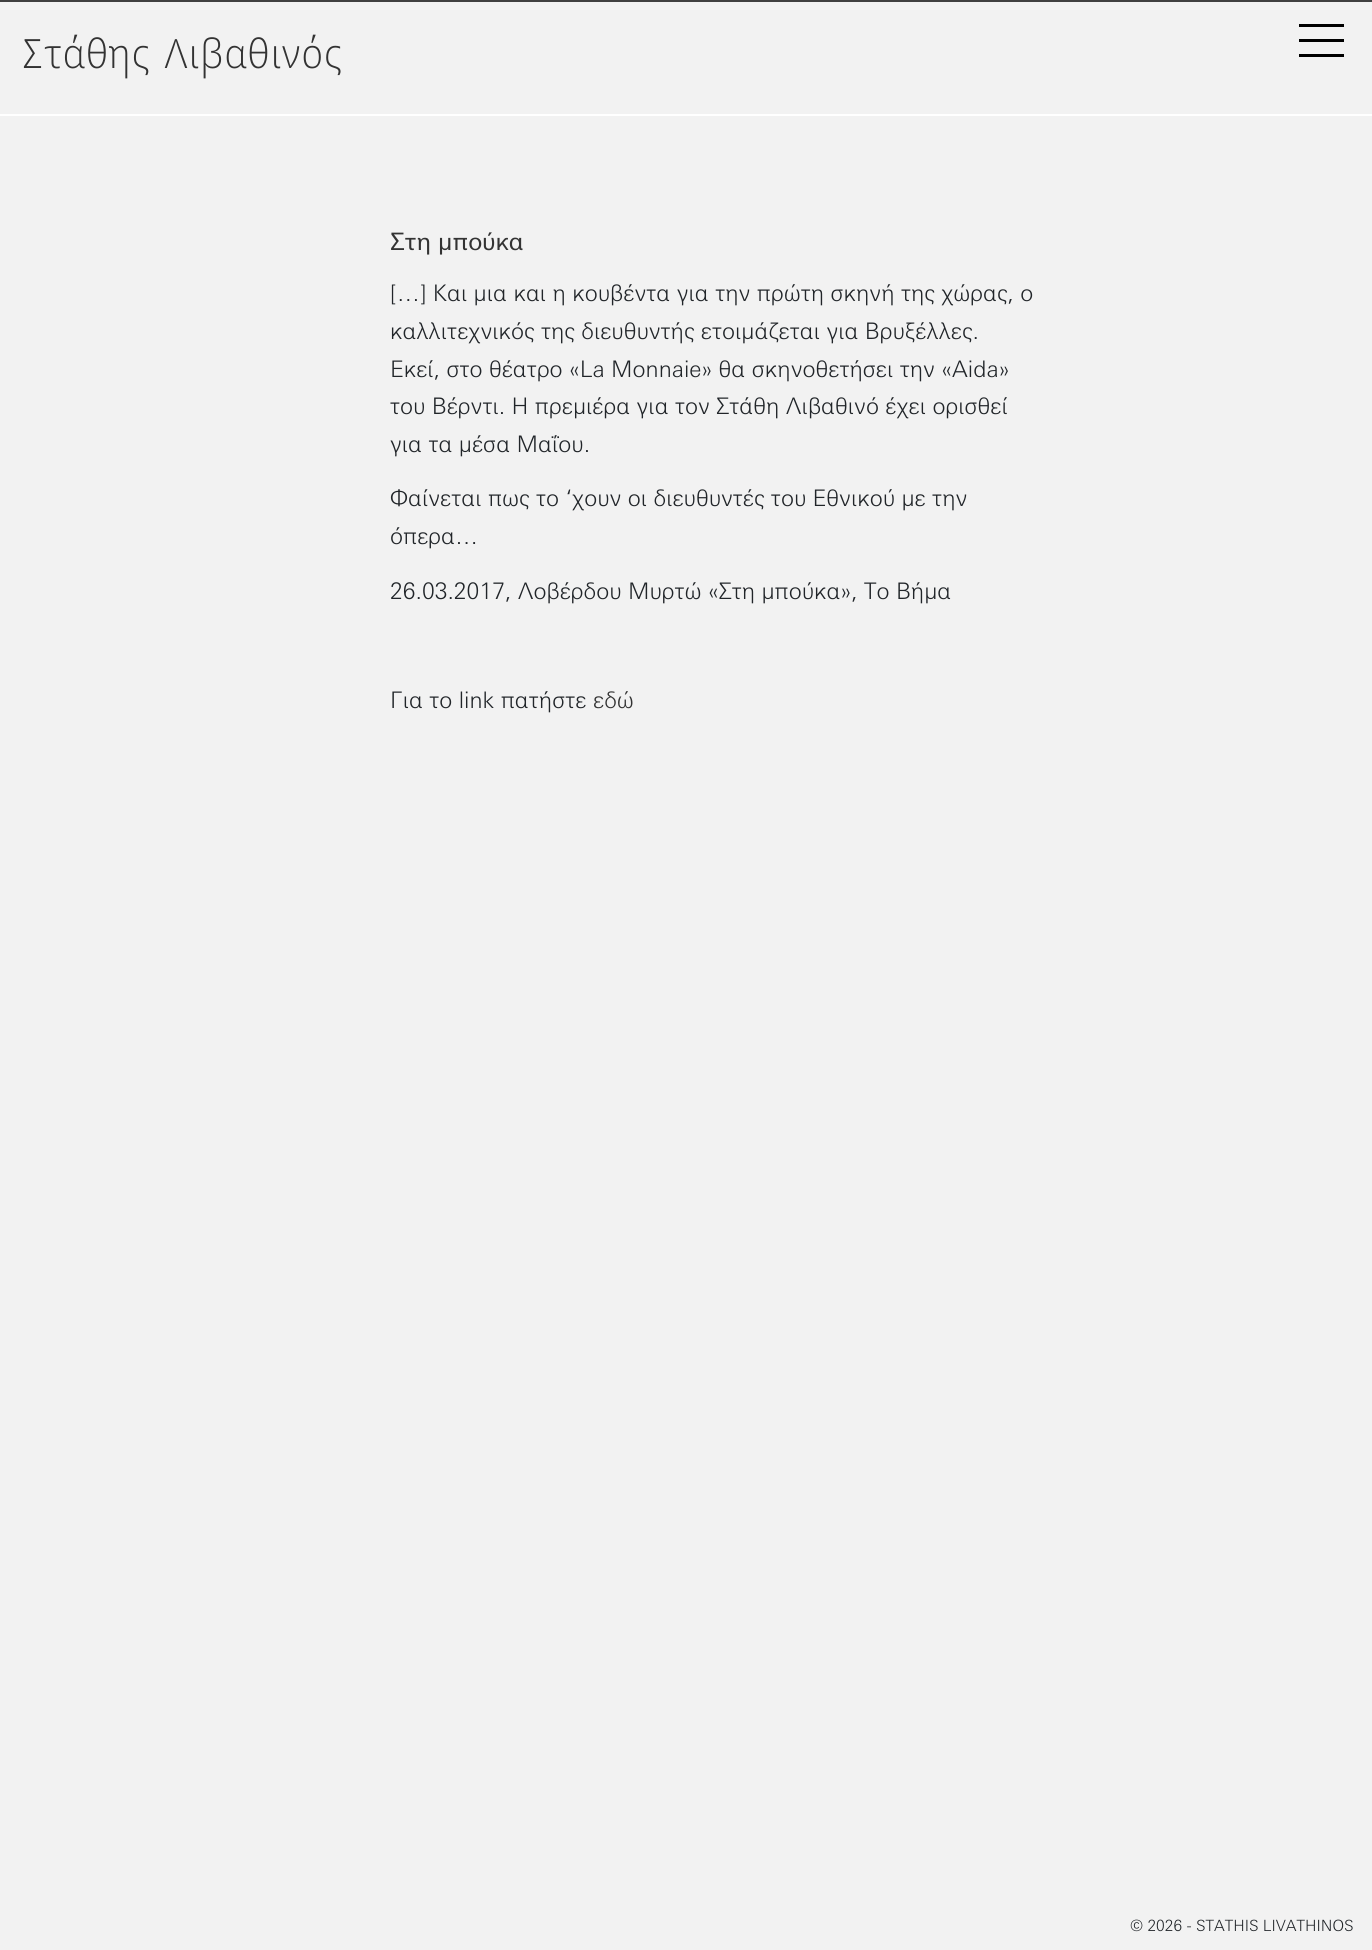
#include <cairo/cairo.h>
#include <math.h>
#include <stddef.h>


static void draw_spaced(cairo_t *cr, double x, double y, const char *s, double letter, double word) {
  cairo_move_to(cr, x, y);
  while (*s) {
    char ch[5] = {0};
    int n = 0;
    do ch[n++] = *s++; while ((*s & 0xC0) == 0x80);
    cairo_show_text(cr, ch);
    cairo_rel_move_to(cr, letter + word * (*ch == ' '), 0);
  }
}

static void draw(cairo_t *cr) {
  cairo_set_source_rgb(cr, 242 / 255.0, 242 / 255.0, 242 / 255.0);
  cairo_paint(cr);
  cairo_set_source_rgb(cr, 64 / 255.0, 64 / 255.0, 64 / 255.0);
  cairo_rectangle(cr, 0, 0, 1372, 2);
  cairo_fill(cr);
  cairo_set_source_rgb(cr, 1, 1, 1);
  cairo_rectangle(cr, 0, 114, 1372, 2);
  cairo_fill(cr);
  cairo_set_source_rgb(cr, 0, 0, 0);
  cairo_rectangle(cr, 1299, 54, 45, 3);
  cairo_fill(cr);
  cairo_rectangle(cr, 1299, 24, 45, 3);
  cairo_fill(cr);
  cairo_rectangle(cr, 1299, 39, 45, 3);
  cairo_fill(cr);
  cairo_select_font_face(cr, "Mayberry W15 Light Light", CAIRO_FONT_SLANT_NORMAL, CAIRO_FONT_WEIGHT_NORMAL);
  cairo_set_font_size(cr, 43.25);
  cairo_set_source_rgb(cr, 51 / 255.0, 51 / 255.0, 51 / 255.0);
  draw_spaced(cr, 23, 68, "Στάθης Λιβαθινός", 1.5, 0);
  cairo_select_font_face(cr, "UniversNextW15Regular", CAIRO_FONT_SLANT_NORMAL, CAIRO_FONT_WEIGHT_NORMAL);
  cairo_set_font_size(cr, 24);
  cairo_move_to(cr, 390, 250);
  cairo_show_text(cr, "Στη μπούκα");
  cairo_select_font_face(cr, "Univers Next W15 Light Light", CAIRO_FONT_SLANT_NORMAL, CAIRO_FONT_WEIGHT_NORMAL);
  cairo_set_font_size(cr, 22.8);
  cairo_set_source_rgb(cr, 33 / 255.0, 37 / 255.0, 41 / 255.0);
  cairo_move_to(cr, 390, 301);
  cairo_show_text(cr, "[…] Και μια και η κουβέντα για την πρώτη σκηνή της χώρας, ο");
  cairo_move_to(cr, 390, 339);
  cairo_show_text(cr, "καλλιτεχνικός της διευθυντής ετοιμάζεται για Βρυξέλλες.");
  cairo_move_to(cr, 390, 377);
  cairo_show_text(cr, "Εκεί, στο θέατρο «La Monnaie» θα σκηνοθετήσει την «Αida»");
  cairo_move_to(cr, 390, 414);
  cairo_show_text(cr, "του Βέρντι. Η πρεμιέρα για τον Στάθη Λιβαθινό έχει ορισθεί");
  cairo_move_to(cr, 390, 452);
  cairo_show_text(cr, "για τα μέσα Μαΐου.");
  cairo_move_to(cr, 390, 506);
  cairo_show_text(cr, "Φαίνεται πως το ‘χουν οι διευθυντές του Εθνικού με την");
  cairo_move_to(cr, 390, 544);
  cairo_show_text(cr, "όπερα…");
  cairo_move_to(cr, 390, 599);
  cairo_show_text(cr, "26.03.2017, Λοβέρδου Μυρτώ «Στη μπούκα», Το Βήμα");
  cairo_move_to(cr, 390, 708);
  cairo_show_text(cr, "Για το link πατήστε");
  cairo_set_source_rgb(cr, 51 / 255.0, 51 / 255.0, 51 / 255.0);
  cairo_move_to(cr, 593, 708);
  cairo_show_text(cr, "εδώ");
  cairo_set_font_size(cr, 15.5);
  cairo_set_source_rgb(cr, 33 / 255.0, 37 / 255.0, 41 / 255.0);
  cairo_move_to(cr, 1130, 1931);
  cairo_show_text(cr, "© 2026 - STATHIS LIVATHINOS");
}

int main(void) {
  cairo_surface_t *surface = cairo_image_surface_create(CAIRO_FORMAT_RGB24, 1372, 1950);
  cairo_t *cr = cairo_create(surface);
  cairo_font_options_t *options = cairo_font_options_create();
  cairo_font_options_set_hint_metrics(options, CAIRO_HINT_METRICS_OFF);
  cairo_font_options_set_hint_style(options, CAIRO_HINT_STYLE_NONE);
  cairo_set_font_options(cr, options);
  cairo_set_miter_limit(cr, 4);
  draw(cr);
  cairo_surface_write_to_png(surface, "out.png");
  cairo_font_options_destroy(options);
  cairo_destroy(cr);
  cairo_surface_destroy(surface);
  return 0;
}
